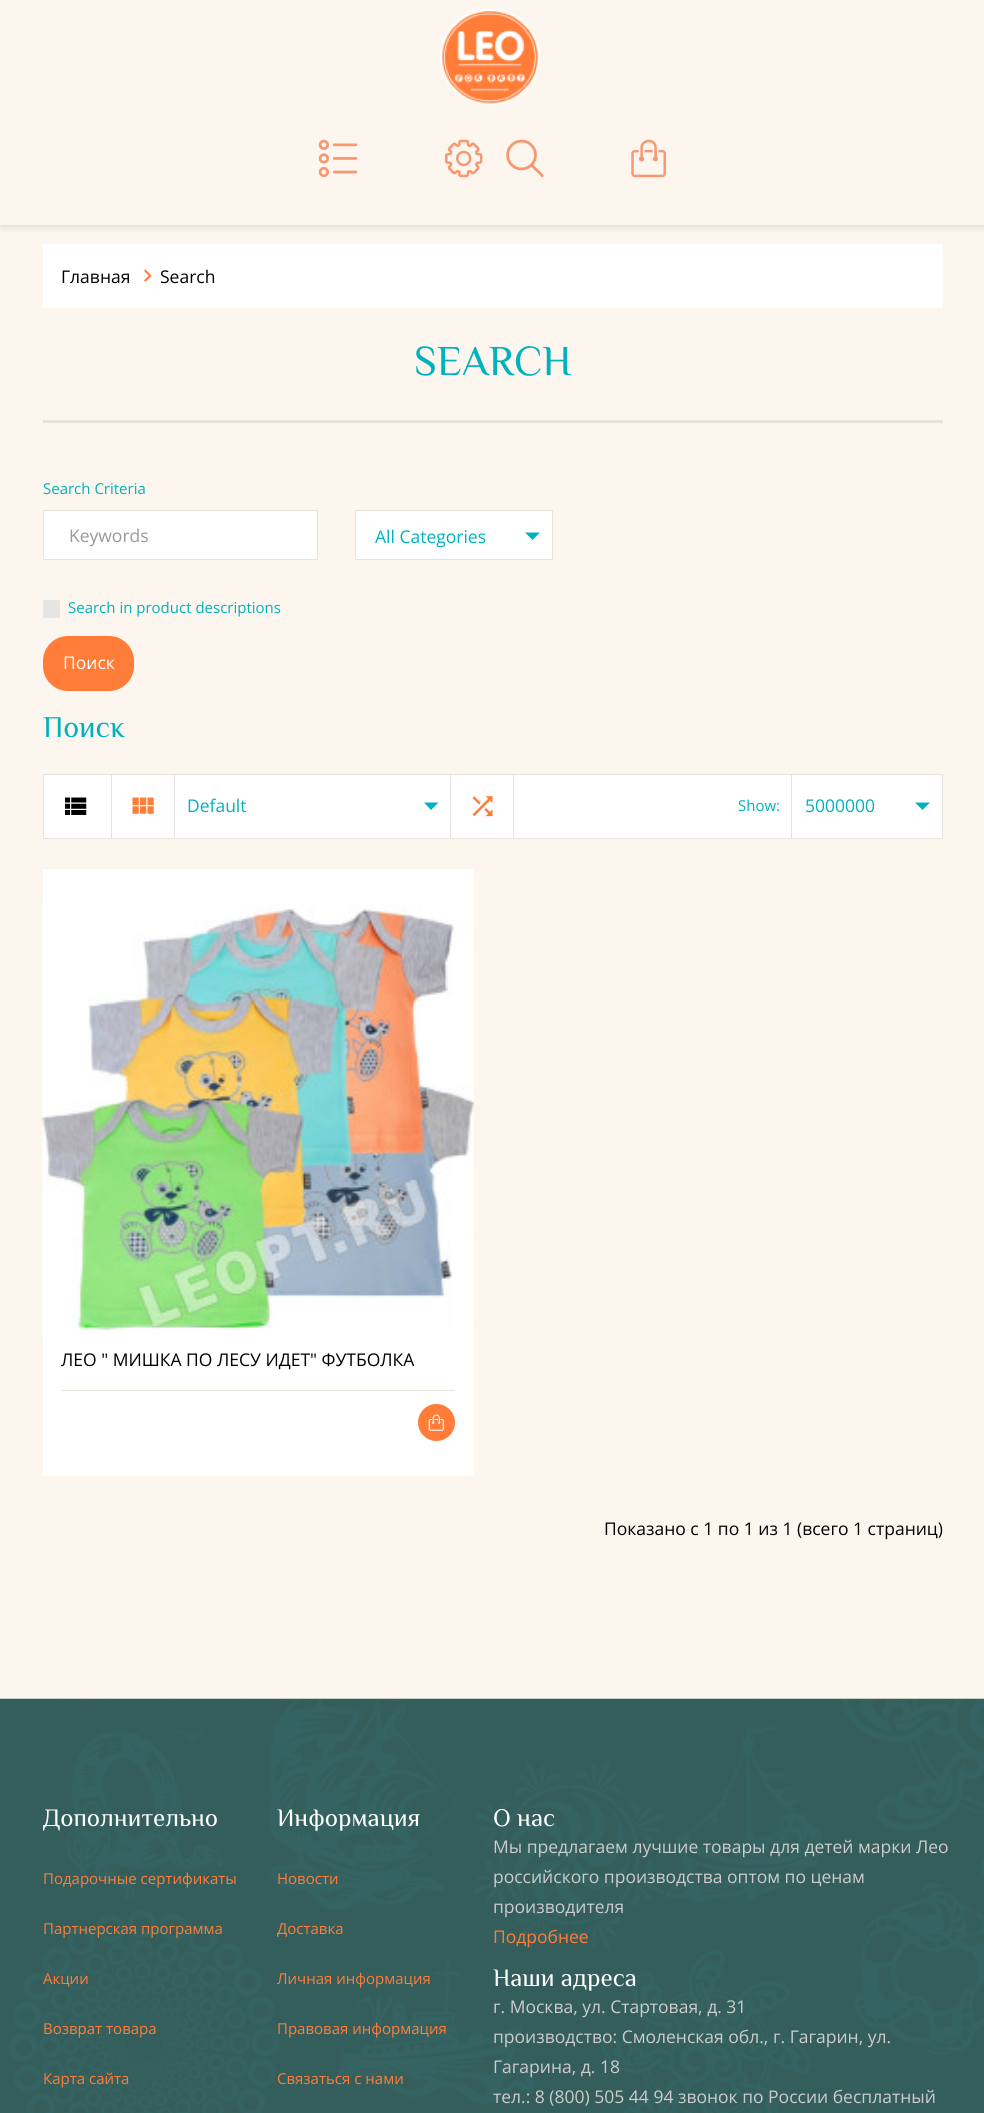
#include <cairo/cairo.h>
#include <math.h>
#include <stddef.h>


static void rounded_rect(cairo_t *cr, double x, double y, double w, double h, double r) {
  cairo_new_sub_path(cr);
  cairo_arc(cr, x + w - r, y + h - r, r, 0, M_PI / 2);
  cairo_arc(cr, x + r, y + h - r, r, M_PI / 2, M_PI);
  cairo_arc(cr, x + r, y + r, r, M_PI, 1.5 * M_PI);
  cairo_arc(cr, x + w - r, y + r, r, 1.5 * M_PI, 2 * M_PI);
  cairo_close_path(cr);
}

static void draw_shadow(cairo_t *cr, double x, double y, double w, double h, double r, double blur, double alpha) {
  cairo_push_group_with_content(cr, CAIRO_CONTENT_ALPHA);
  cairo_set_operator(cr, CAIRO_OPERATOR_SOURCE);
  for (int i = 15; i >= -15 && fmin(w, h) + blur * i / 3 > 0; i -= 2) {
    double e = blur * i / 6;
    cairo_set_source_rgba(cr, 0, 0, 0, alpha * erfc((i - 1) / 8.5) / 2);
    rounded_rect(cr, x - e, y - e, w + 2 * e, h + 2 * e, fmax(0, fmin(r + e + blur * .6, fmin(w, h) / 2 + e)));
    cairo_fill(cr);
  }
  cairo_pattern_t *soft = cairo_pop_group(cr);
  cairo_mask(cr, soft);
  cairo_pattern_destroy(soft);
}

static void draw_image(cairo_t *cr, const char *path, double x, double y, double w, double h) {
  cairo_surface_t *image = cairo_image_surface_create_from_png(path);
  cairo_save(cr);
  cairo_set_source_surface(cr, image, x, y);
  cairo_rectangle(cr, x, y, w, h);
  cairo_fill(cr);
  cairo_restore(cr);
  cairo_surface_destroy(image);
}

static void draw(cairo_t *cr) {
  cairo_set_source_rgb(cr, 252 / 255.0, 246 / 255.0, 239 / 255.0);
  cairo_paint(cr);
  cairo_save(cr);
  cairo_rectangle(cr, 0, 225, 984, 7);
  cairo_clip(cr);
  cairo_set_source_rgb(cr, 0, 0, 0);
  draw_shadow(cr, 1, 1, 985, 225, 0, 5, 0.15);
  cairo_restore(cr);
  draw_image(cr, "images/1.png", 440, 8, 100, 97);
  draw_image(cr, "images/2.png", 318, 139, 40, 39);
  draw_image(cr, "images/3.png", 445, 139, 38, 39);
  draw_image(cr, "images/4.png", 506, 139, 38, 39);
  draw_image(cr, "images/5.png", 631, 139, 35, 39);
  cairo_set_source_rgb(cr, 1, 1, 1);
  cairo_rectangle(cr, 43, 244, 900, 64);
  cairo_fill(cr);
  draw_image(cr, "images/6.png", 144, 269, 8, 13);
  cairo_set_source_rgb(cr, 230 / 255.0, 227 / 255.0, 220 / 255.0);
  cairo_rectangle(cr, 43, 420, 900, 3);
  cairo_fill(cr);
  cairo_set_source_rgb(cr, 1, 1, 1);
  cairo_rectangle(cr, 43.5, 510.5, 274, 49);
  cairo_fill_preserve(cr);
  cairo_set_source_rgb(cr, 230 / 255.0, 227 / 255.0, 220 / 255.0);
  cairo_set_line_width(cr, 1);
  cairo_stroke(cr);
  cairo_set_source_rgb(cr, 1, 1, 1);
  cairo_rectangle(cr, 355.5, 510.5, 197, 49);
  cairo_fill_preserve(cr);
  cairo_set_source_rgb(cr, 230 / 255.0, 227 / 255.0, 220 / 255.0);
  cairo_stroke(cr);
  cairo_set_source_rgb(cr, 0, 177 / 255.0, 190 / 255.0);
  cairo_new_path(cr);
  cairo_move_to(cr, 525, 532.5);
  cairo_line_to(cr, 532.5, 540);
  cairo_line_to(cr, 540, 532.5);
  cairo_close_path(cr);
  cairo_fill(cr);
  cairo_set_source_rgb(cr, 229 / 255.0, 229 / 255.0, 229 / 255.0);
  cairo_rectangle(cr, 43, 600, 17, 18);
  cairo_fill(cr);
  cairo_set_source_rgb(cr, 1, 125 / 255.0, 56 / 255.0);
  rounded_rect(cr, 43, 636, 91, 55, 25);
  cairo_fill(cr);
  cairo_set_source_rgb(cr, 1, 1, 1);
  cairo_rectangle(cr, 43.5, 774.5, 899, 64);
  cairo_fill_preserve(cr);
  cairo_set_source_rgb(cr, 230 / 255.0, 227 / 255.0, 220 / 255.0);
  cairo_stroke(cr);
  draw_image(cr, "images/7.png", 65, 797, 22, 18);
  cairo_rectangle(cr, 111, 775, 1, 63);
  cairo_fill(cr);
  draw_image(cr, "images/8.png", 132, 797, 22, 17);
  cairo_rectangle(cr, 450, 775, 1, 63);
  cairo_fill(cr);
  cairo_rectangle(cr, 174, 775, 1, 63);
  cairo_fill(cr);
  cairo_set_source_rgb(cr, 0, 177 / 255.0, 190 / 255.0);
  cairo_new_path(cr);
  cairo_move_to(cr, 424, 802.5);
  cairo_line_to(cr, 431, 810);
  cairo_line_to(cr, 438.5, 802.5);
  cairo_close_path(cr);
  cairo_fill(cr);
  cairo_set_source_rgb(cr, 230 / 255.0, 227 / 255.0, 220 / 255.0);
  cairo_rectangle(cr, 513, 775, 1, 63);
  cairo_fill(cr);
  draw_image(cr, "images/9.png", 472, 796, 21, 21);
  cairo_rectangle(cr, 791, 775, 1, 63);
  cairo_fill(cr);
  cairo_set_source_rgb(cr, 0, 177 / 255.0, 190 / 255.0);
  cairo_new_path(cr);
  cairo_move_to(cr, 915, 802.5);
  cairo_line_to(cr, 922.5, 810);
  cairo_line_to(cr, 930, 802.5);
  cairo_close_path(cr);
  cairo_fill(cr);
  cairo_set_source_rgb(cr, 1, 1, 1);
  cairo_rectangle(cr, 43, 869, 431, 607);
  cairo_fill(cr);
  draw_image(cr, "images/10.png", 42, 904, 432, 431);
  cairo_set_source_rgb(cr, 230 / 255.0, 227 / 255.0, 220 / 255.0);
  cairo_rectangle(cr, 61, 1390, 394, 1);
  cairo_fill(cr);
  cairo_set_source_rgb(cr, 1, 125 / 255.0, 56 / 255.0);
  cairo_arc(cr, 436.5, 1422.5, 18.5, 0, 2 * M_PI);
  cairo_fill(cr);
  draw_image(cr, "images/11.png", 428, 1414, 16, 17);
  draw_image(cr, "images/12.png", 0, 1698, 984, 415);
  cairo_select_font_face(cr, "Open Sans", CAIRO_FONT_SLANT_NORMAL, CAIRO_FONT_WEIGHT_NORMAL);
  cairo_set_font_size(cr, 17.5);
  cairo_set_source_rgb(cr, 0, 0, 0);
  cairo_move_to(cr, 61, 283);
  cairo_show_text(cr, "Главная");
  cairo_move_to(cr, 160, 283);
  cairo_show_text(cr, "Search");
  cairo_select_font_face(cr, "Philosopher", CAIRO_FONT_SLANT_NORMAL, CAIRO_FONT_WEIGHT_NORMAL);
  cairo_set_font_size(cr, 42.5);
  cairo_set_source_rgb(cr, 0, 177 / 255.0, 190 / 255.0);
  cairo_move_to(cr, 414, 375);
  cairo_show_text(cr, "SEARCH");
  cairo_select_font_face(cr, "Open Sans", CAIRO_FONT_SLANT_NORMAL, CAIRO_FONT_WEIGHT_NORMAL);
  cairo_set_font_size(cr, 15);
  cairo_move_to(cr, 43, 494);
  cairo_show_text(cr, "Search Criteria");
  cairo_set_font_size(cr, 17.5);
  cairo_set_source_rgb(cr, 153 / 255.0, 153 / 255.0, 153 / 255.0);
  cairo_move_to(cr, 69, 542);
  cairo_show_text(cr, "Keywords");
  cairo_set_source_rgb(cr, 0, 177 / 255.0, 190 / 255.0);
  cairo_move_to(cr, 375, 543);
  cairo_show_text(cr, "All Categories");
  cairo_set_font_size(cr, 15);
  cairo_move_to(cr, 68, 613);
  cairo_show_text(cr, "Search in product descriptions");
  cairo_set_font_size(cr, 17.5);
  cairo_set_source_rgb(cr, 1, 1, 1);
  cairo_move_to(cr, 63, 669);
  cairo_show_text(cr, "Поиск");
  cairo_select_font_face(cr, "Philosopher", CAIRO_FONT_SLANT_NORMAL, CAIRO_FONT_WEIGHT_NORMAL);
  cairo_set_font_size(cr, 30);
  cairo_set_source_rgb(cr, 0, 177 / 255.0, 190 / 255.0);
  cairo_move_to(cr, 43, 737);
  cairo_show_text(cr, "Поиск");
  cairo_select_font_face(cr, "Open Sans", CAIRO_FONT_SLANT_NORMAL, CAIRO_FONT_WEIGHT_NORMAL);
  cairo_set_font_size(cr, 17.5);
  cairo_move_to(cr, 187, 812);
  cairo_show_text(cr, "Default");
  cairo_set_font_size(cr, 15);
  cairo_move_to(cr, 738, 811);
  cairo_show_text(cr, "Show:");
  cairo_set_font_size(cr, 17.5);
  cairo_move_to(cr, 805, 812);
  cairo_show_text(cr, "5000000");
  cairo_set_source_rgb(cr, 0, 0, 0);
  cairo_move_to(cr, 61, 1366);
  cairo_show_text(cr, "ЛЕО \" МИШКА ПО ЛЕСУ ИДЕТ\" ФУТБОЛКА");
  cairo_move_to(cr, 604, 1535);
  cairo_show_text(cr, "Показано с 1 по 1 из 1 (всего 1 страниц)");
  cairo_select_font_face(cr, "Philosopher", CAIRO_FONT_SLANT_NORMAL, CAIRO_FONT_WEIGHT_NORMAL);
  cairo_set_font_size(cr, 25);
  cairo_set_source_rgb(cr, 1, 1, 1);
  cairo_move_to(cr, 43, 1826);
  cairo_show_text(cr, "Дополнительно");
  cairo_select_font_face(cr, "Open Sans", CAIRO_FONT_SLANT_NORMAL, CAIRO_FONT_WEIGHT_NORMAL);
  cairo_set_font_size(cr, 15);
  cairo_set_source_rgb(cr, 1, 125 / 255.0, 56 / 255.0);
  cairo_move_to(cr, 43, 1884);
  cairo_show_text(cr, "Подарочные сертификаты");
  cairo_move_to(cr, 43, 1934);
  cairo_show_text(cr, "Партнерская программа");
  cairo_move_to(cr, 43, 1984);
  cairo_show_text(cr, "Акции");
  cairo_move_to(cr, 43, 2034);
  cairo_show_text(cr, "Возврат товара");
  cairo_move_to(cr, 43, 2084);
  cairo_show_text(cr, "Карта сайта");
  cairo_select_font_face(cr, "Philosopher", CAIRO_FONT_SLANT_NORMAL, CAIRO_FONT_WEIGHT_NORMAL);
  cairo_set_font_size(cr, 25);
  cairo_set_source_rgb(cr, 1, 1, 1);
  cairo_move_to(cr, 277, 1826);
  cairo_show_text(cr, "Информация");
  cairo_select_font_face(cr, "Open Sans", CAIRO_FONT_SLANT_NORMAL, CAIRO_FONT_WEIGHT_NORMAL);
  cairo_set_font_size(cr, 15);
  cairo_set_source_rgb(cr, 1, 125 / 255.0, 56 / 255.0);
  cairo_move_to(cr, 277, 1884);
  cairo_show_text(cr, "Новости");
  cairo_move_to(cr, 277, 1934);
  cairo_show_text(cr, "Доставка");
  cairo_move_to(cr, 277, 1984);
  cairo_show_text(cr, "Личная информация");
  cairo_move_to(cr, 277, 2034);
  cairo_show_text(cr, "Правовая информация");
  cairo_move_to(cr, 277, 2084);
  cairo_show_text(cr, "Связаться с нами");
  cairo_select_font_face(cr, "Philosopher", CAIRO_FONT_SLANT_NORMAL, CAIRO_FONT_WEIGHT_NORMAL);
  cairo_set_font_size(cr, 25);
  cairo_set_source_rgb(cr, 1, 1, 1);
  cairo_move_to(cr, 493, 1826);
  cairo_show_text(cr, "О нас");
  cairo_select_font_face(cr, "Open Sans", CAIRO_FONT_SLANT_NORMAL, CAIRO_FONT_WEIGHT_NORMAL);
  cairo_set_font_size(cr, 17.5);
  cairo_set_source_rgb(cr, 204 / 255.0, 204 / 255.0, 204 / 255.0);
  cairo_move_to(cr, 493, 1853);
  cairo_show_text(cr, "Мы предлагаем лучшие товары для детей марки Лео");
  cairo_move_to(cr, 493, 1883);
  cairo_show_text(cr, "российского производства оптом по ценам");
  cairo_move_to(cr, 493, 1913);
  cairo_show_text(cr, "производителя");
  cairo_set_source_rgb(cr, 1, 125 / 255.0, 56 / 255.0);
  cairo_move_to(cr, 493, 1943);
  cairo_show_text(cr, "Подробнее");
  cairo_select_font_face(cr, "Philosopher", CAIRO_FONT_SLANT_NORMAL, CAIRO_FONT_WEIGHT_NORMAL);
  cairo_set_font_size(cr, 25);
  cairo_set_source_rgb(cr, 1, 1, 1);
  cairo_move_to(cr, 493, 1986);
  cairo_show_text(cr, "Наши адреса");
  cairo_select_font_face(cr, "Open Sans", CAIRO_FONT_SLANT_NORMAL, CAIRO_FONT_WEIGHT_NORMAL);
  cairo_set_font_size(cr, 17.5);
  cairo_set_source_rgb(cr, 204 / 255.0, 204 / 255.0, 204 / 255.0);
  cairo_move_to(cr, 493, 2013);
  cairo_show_text(cr, "г. Москва, ул. Стартовая, д. 31");
  cairo_move_to(cr, 493, 2043);
  cairo_show_text(cr, "производство: Смоленская обл., г. Гагарин, ул.");
  cairo_move_to(cr, 493, 2073);
  cairo_show_text(cr, "Гагарина, д. 18");
  cairo_move_to(cr, 493, 2103);
  cairo_show_text(cr, "тел.: 8 (800) 505 44 94 звонок по России бесплатный");
}

int main(void) {
  cairo_surface_t *surface = cairo_image_surface_create(CAIRO_FORMAT_RGB24, 984, 2113);
  cairo_t *cr = cairo_create(surface);
  cairo_font_options_t *options = cairo_font_options_create();
  cairo_font_options_set_hint_metrics(options, CAIRO_HINT_METRICS_OFF);
  cairo_font_options_set_hint_style(options, CAIRO_HINT_STYLE_NONE);
  cairo_set_font_options(cr, options);
  cairo_set_miter_limit(cr, 4);
  draw(cr);
  cairo_surface_write_to_png(surface, "out.png");
  cairo_font_options_destroy(options);
  cairo_destroy(cr);
  cairo_surface_destroy(surface);
  return 0;
}
